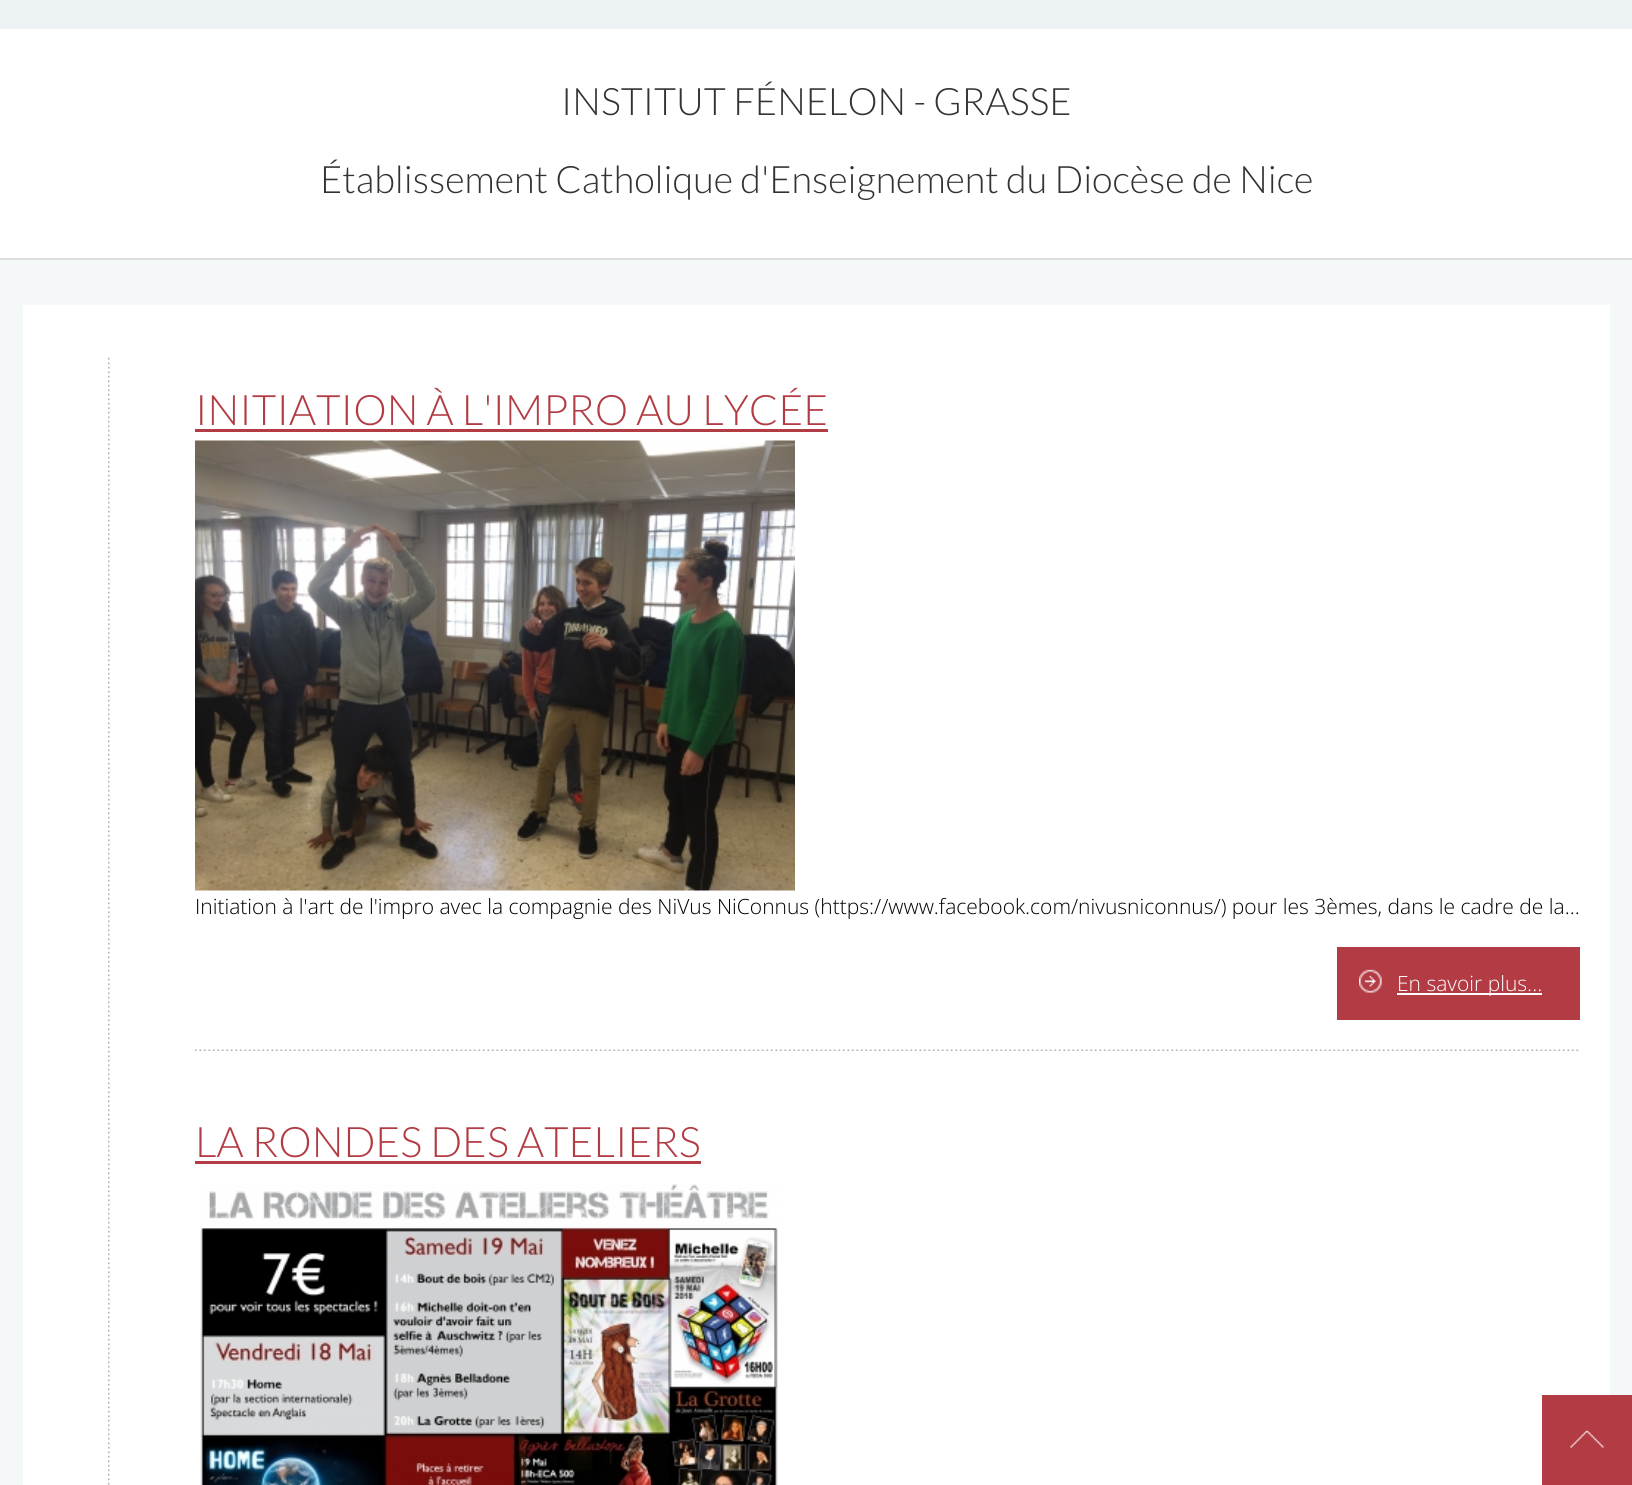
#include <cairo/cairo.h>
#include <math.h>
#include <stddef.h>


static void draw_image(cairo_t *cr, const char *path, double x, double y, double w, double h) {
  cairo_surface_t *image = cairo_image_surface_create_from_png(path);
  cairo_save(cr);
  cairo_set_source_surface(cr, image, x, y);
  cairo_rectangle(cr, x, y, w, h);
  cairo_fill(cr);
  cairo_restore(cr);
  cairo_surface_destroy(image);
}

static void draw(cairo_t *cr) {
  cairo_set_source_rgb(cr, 245 / 255.0, 248 / 255.0, 249 / 255.0);
  cairo_paint(cr);
  cairo_set_source_rgb(cr, 236 / 255.0, 242 / 255.0, 244 / 255.0);
  cairo_rectangle(cr, 0, 0, 1632, 29);
  cairo_fill(cr);
  cairo_set_source_rgb(cr, 1, 1, 1);
  cairo_rectangle(cr, 0, 29, 1632, 229);
  cairo_fill(cr);
  cairo_set_source_rgb(cr, 221 / 255.0, 221 / 255.0, 221 / 255.0);
  cairo_rectangle(cr, 0, 258, 1632, 2);
  cairo_fill(cr);
  cairo_set_source_rgb(cr, 1, 1, 1);
  cairo_rectangle(cr, 23, 305, 1587, 1180);
  cairo_fill(cr);
  draw_image(cr, "images/1.png", 108, 357, 2, 1128);
  draw_image(cr, "images/2.png", 195, 1049, 1384, 2);
  cairo_set_source_rgb(cr, 178 / 255.0, 59 / 255.0, 68 / 255.0);
  cairo_rectangle(cr, 195, 429, 633, 3);
  cairo_fill(cr);
  draw_image(cr, "images/3.png", 195, 440, 600, 451);
  cairo_rectangle(cr, 1337, 947, 243, 73);
  cairo_fill(cr);
  draw_image(cr, "images/4.png", 1359, 969, 23, 24);
  cairo_set_source_rgb(cr, 1, 1, 1);
  cairo_rectangle(cr, 1397, 993, 145, 2);
  cairo_fill(cr);
  cairo_set_source_rgb(cr, 178 / 255.0, 59 / 255.0, 68 / 255.0);
  cairo_rectangle(cr, 195, 1161, 506, 3);
  cairo_fill(cr);
  draw_image(cr, "images/5.png", 200, 1184, 578, 301);
  cairo_rectangle(cr, 1542, 1395, 90, 90);
  cairo_fill(cr);
  draw_image(cr, "images/6.png", 1570, 1430, 34, 18);
  cairo_select_font_face(cr, "Lato Light", CAIRO_FONT_SLANT_NORMAL, CAIRO_FONT_WEIGHT_NORMAL);
  cairo_set_font_size(cr, 37.8);
  cairo_set_source_rgb(cr, 51 / 255.0, 51 / 255.0, 51 / 255.0);
  cairo_move_to(cr, 561, 115);
  cairo_show_text(cr, "INSTITUT FÉNELON - GRASSE");
  cairo_move_to(cr, 320, 193);
  cairo_show_text(cr, "Établissement Catholique d'Enseignement du Diocèse de Nice");
  cairo_set_font_size(cr, 42);
  cairo_set_source_rgb(cr, 178 / 255.0, 59 / 255.0, 68 / 255.0);
  cairo_move_to(cr, 195, 425);
  cairo_show_text(cr, "INITIATION À L'IMPRO AU LYCÉE");
  cairo_select_font_face(cr, "Open Sans Light", CAIRO_FONT_SLANT_NORMAL, CAIRO_FONT_WEIGHT_NORMAL);
  cairo_set_font_size(cr, 21);
  cairo_set_source_rgb(cr, 0, 0, 0);
  cairo_move_to(cr, 195, 914);
  cairo_show_text(cr, "Initiation à l'art de l'impro avec la compagnie des NiVus NiConnus (https://www.facebook.com/nivusniconnus/) pour les 3èmes, dans le cadre de la…");
  cairo_set_source_rgb(cr, 1, 1, 1);
  cairo_move_to(cr, 1397, 991);
  cairo_show_text(cr, "En savoir plus...");
  cairo_select_font_face(cr, "Lato Light", CAIRO_FONT_SLANT_NORMAL, CAIRO_FONT_WEIGHT_NORMAL);
  cairo_set_font_size(cr, 42);
  cairo_set_source_rgb(cr, 178 / 255.0, 59 / 255.0, 68 / 255.0);
  cairo_move_to(cr, 195, 1157);
  cairo_show_text(cr, "LA RONDES DES ATELIERS");
}

int main(void) {
  cairo_surface_t *surface = cairo_image_surface_create(CAIRO_FORMAT_RGB24, 1632, 1485);
  cairo_t *cr = cairo_create(surface);
  cairo_font_options_t *options = cairo_font_options_create();
  cairo_font_options_set_hint_metrics(options, CAIRO_HINT_METRICS_OFF);
  cairo_font_options_set_hint_style(options, CAIRO_HINT_STYLE_NONE);
  cairo_set_font_options(cr, options);
  cairo_set_miter_limit(cr, 4);
  draw(cr);
  cairo_surface_write_to_png(surface, "out.png");
  cairo_font_options_destroy(options);
  cairo_destroy(cr);
  cairo_surface_destroy(surface);
  return 0;
}
